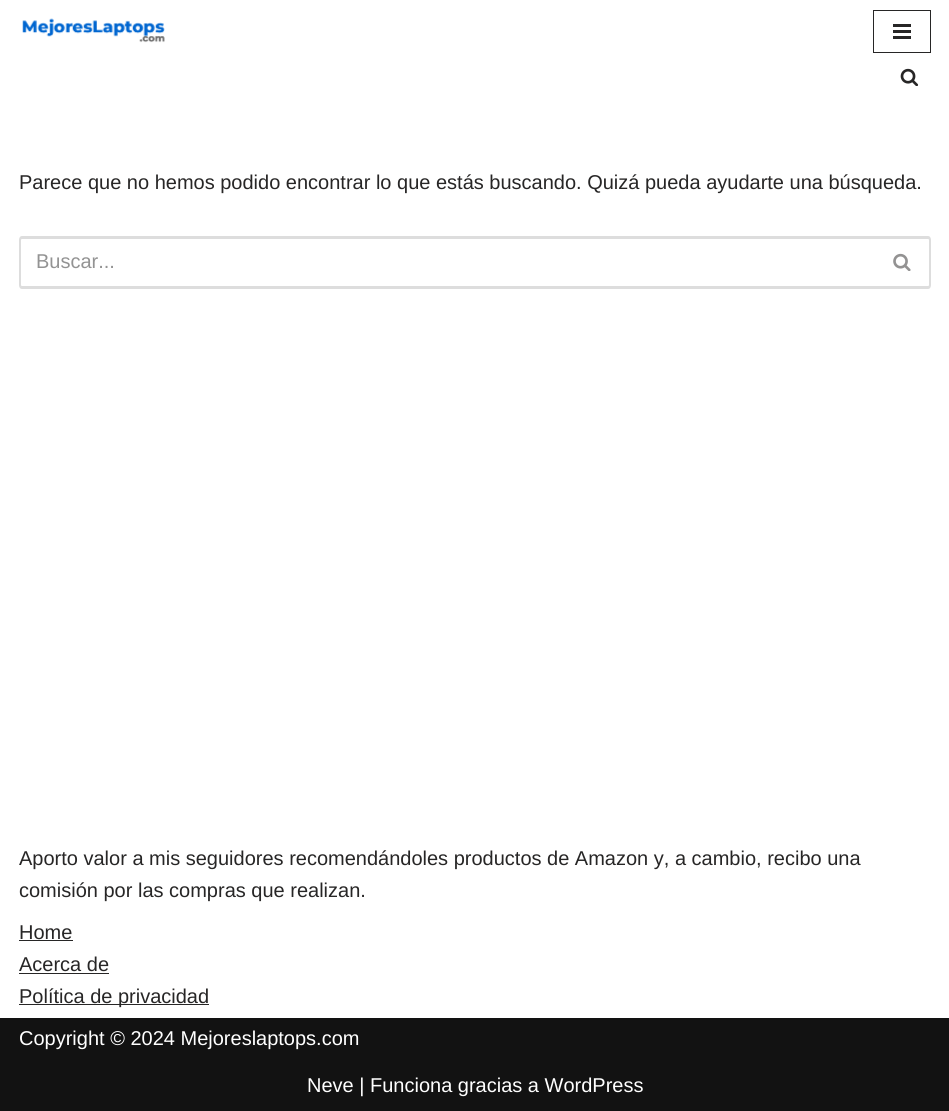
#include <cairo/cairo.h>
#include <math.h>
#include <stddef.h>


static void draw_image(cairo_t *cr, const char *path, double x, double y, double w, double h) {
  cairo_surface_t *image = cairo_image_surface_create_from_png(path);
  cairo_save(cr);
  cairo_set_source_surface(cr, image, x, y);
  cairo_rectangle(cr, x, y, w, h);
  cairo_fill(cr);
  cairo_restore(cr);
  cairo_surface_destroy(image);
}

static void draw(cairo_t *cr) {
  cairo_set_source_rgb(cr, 1, 1, 1);
  cairo_paint(cr);
  draw_image(cr, "images/1.png", 22, 18, 143, 25);
  cairo_rectangle(cr, 873.5, 10.5, 57, 42);
  cairo_set_source_rgb(cr, 39 / 255.0, 38 / 255.0, 38 / 255.0);
  cairo_set_line_width(cr, 1);
  cairo_stroke(cr);
  cairo_rectangle(cr, 893, 24, 18, 3);
  cairo_fill(cr);
  cairo_rectangle(cr, 893, 30, 18, 3);
  cairo_fill(cr);
  cairo_rectangle(cr, 893, 36, 18, 3);
  cairo_fill(cr);
  draw_image(cr, "images/2.png", 900, 68, 19, 18);
  cairo_set_source_rgb(cr, 221 / 255.0, 221 / 255.0, 221 / 255.0);
  cairo_set_fill_rule(cr, CAIRO_FILL_RULE_EVEN_ODD);
  cairo_new_path(cr);
  cairo_move_to(cr, 22, 236);
  cairo_line_to(cr, 875, 236);
  cairo_line_to(cr, 875, 289);
  cairo_line_to(cr, 22, 289);
  cairo_curve_to(cr, 20, 289, 19, 287, 19, 285);
  cairo_line_to(cr, 19, 240);
  cairo_curve_to(cr, 19, 238, 20, 236, 22, 236);
  cairo_close_path(cr);
  cairo_move_to(cr, 22, 239);
  cairo_line_to(cr, 875, 239);
  cairo_line_to(cr, 875, 286);
  cairo_line_to(cr, 22, 286);
  cairo_curve_to(cr, 22, 286, 21, 286, 21, 285);
  cairo_line_to(cr, 21, 240);
  cairo_curve_to(cr, 21, 239, 22, 239, 22, 239);
  cairo_close_path(cr);
  cairo_fill(cr);
  cairo_new_path(cr);
  cairo_move_to(cr, 875, 236);
  cairo_line_to(cr, 928, 236);
  cairo_curve_to(cr, 930, 236, 931, 238, 931, 240);
  cairo_line_to(cr, 931, 285);
  cairo_curve_to(cr, 931, 287, 930, 289, 928, 289);
  cairo_line_to(cr, 875, 289);
  cairo_close_path(cr);
  cairo_move_to(cr, 875, 239);
  cairo_line_to(cr, 928, 239);
  cairo_curve_to(cr, 928, 239, 929, 239, 929, 240);
  cairo_line_to(cr, 929, 285);
  cairo_curve_to(cr, 929, 286, 928, 286, 928, 286);
  cairo_line_to(cr, 875, 286);
  cairo_close_path(cr);
  cairo_fill(cr);
  draw_image(cr, "images/3.png", 893, 253, 18, 18);
  cairo_set_source_rgb(cr, 39 / 255.0, 38 / 255.0, 38 / 255.0);
  cairo_rectangle(cr, 19, 940, 54, 1);
  cairo_fill(cr);
  cairo_rectangle(cr, 19, 973, 90, 1);
  cairo_fill(cr);
  cairo_rectangle(cr, 19, 1004, 190, 1);
  cairo_fill(cr);
  cairo_set_source_rgb(cr, 18 / 255.0, 18 / 255.0, 18 / 255.0);
  cairo_rectangle(cr, 0, 1018, 949, 93);
  cairo_fill(cr);
  cairo_select_font_face(cr, "Liberation Sans", CAIRO_FONT_SLANT_NORMAL, CAIRO_FONT_WEIGHT_NORMAL);
  cairo_set_font_size(cr, 20);
  cairo_set_source_rgb(cr, 39 / 255.0, 38 / 255.0, 38 / 255.0);
  cairo_move_to(cr, 19, 189);
  cairo_show_text(cr, "Parece que no hemos podido encontrar lo que estás buscando. Quizá pueda ayudarte una búsqueda.");
  cairo_set_source_rgb(cr, 147 / 255.0, 147 / 255.0, 147 / 255.0);
  cairo_move_to(cr, 36, 268);
  cairo_show_text(cr, "Buscar...");
  cairo_set_source_rgb(cr, 39 / 255.0, 38 / 255.0, 38 / 255.0);
  cairo_move_to(cr, 19, 865);
  cairo_show_text(cr, "Aporto valor a mis seguidores recomendándoles productos de Amazon y, a cambio, recibo una");
  cairo_move_to(cr, 19, 897);
  cairo_show_text(cr, "comisión por las compras que realizan.");
  cairo_move_to(cr, 19, 939);
  cairo_show_text(cr, "Home");
  cairo_move_to(cr, 19, 971);
  cairo_show_text(cr, "Acerca de");
  cairo_move_to(cr, 19, 1003);
  cairo_show_text(cr, "Política de privacidad");
  cairo_set_source_rgb(cr, 1, 1, 1);
  cairo_move_to(cr, 19, 1045);
  cairo_show_text(cr, "Copyright © 2024 Mejoreslaptops.com");
  cairo_move_to(cr, 307, 1092);
  cairo_show_text(cr, "Neve | Funciona gracias a WordPress");
}

int main(void) {
  cairo_surface_t *surface = cairo_image_surface_create(CAIRO_FORMAT_RGB24, 949, 1111);
  cairo_t *cr = cairo_create(surface);
  cairo_font_options_t *options = cairo_font_options_create();
  cairo_font_options_set_hint_metrics(options, CAIRO_HINT_METRICS_OFF);
  cairo_font_options_set_hint_style(options, CAIRO_HINT_STYLE_NONE);
  cairo_set_font_options(cr, options);
  cairo_set_miter_limit(cr, 4);
  draw(cr);
  cairo_surface_write_to_png(surface, "out.png");
  cairo_font_options_destroy(options);
  cairo_destroy(cr);
  cairo_surface_destroy(surface);
  return 0;
}
